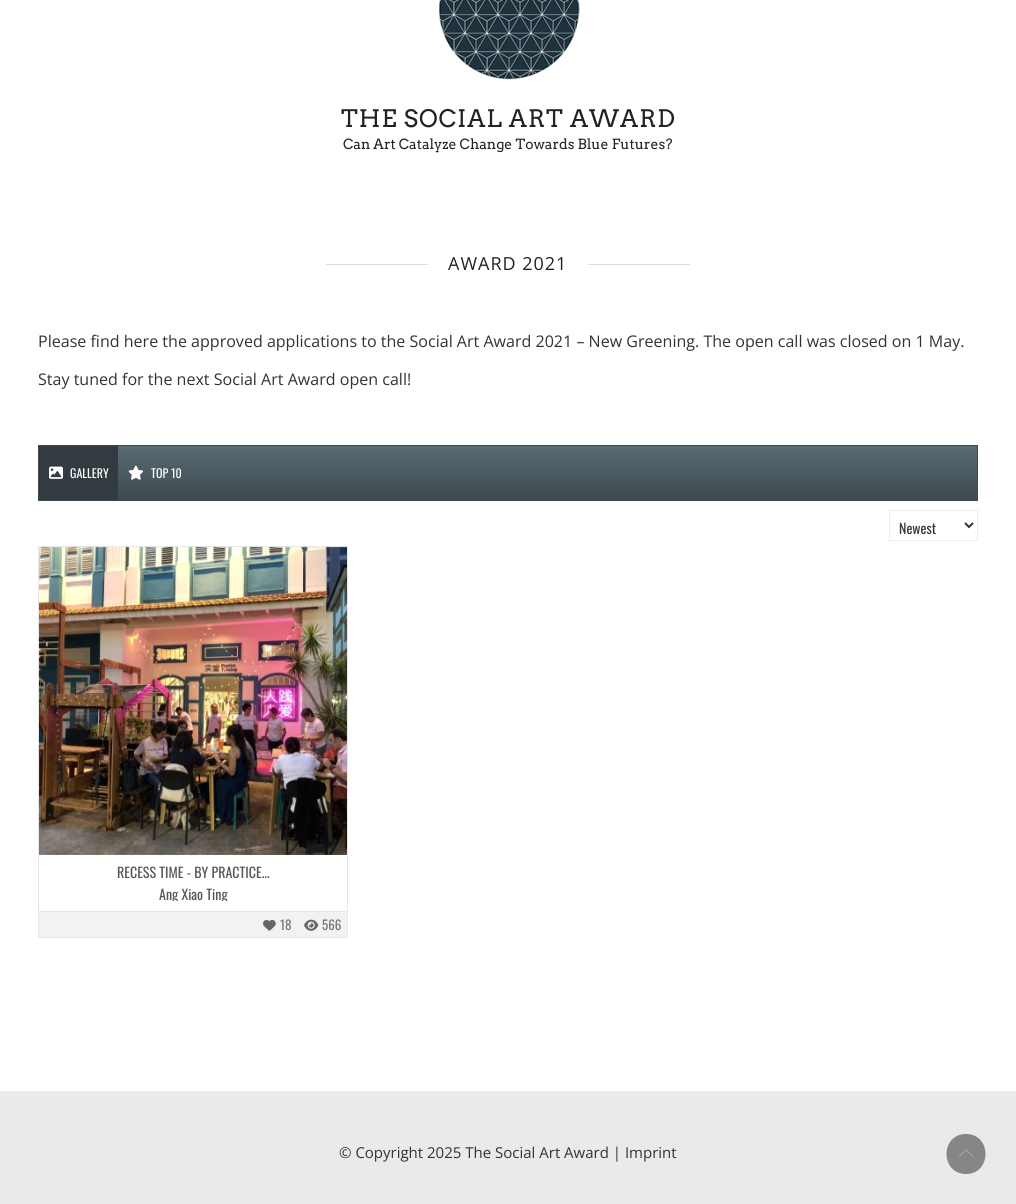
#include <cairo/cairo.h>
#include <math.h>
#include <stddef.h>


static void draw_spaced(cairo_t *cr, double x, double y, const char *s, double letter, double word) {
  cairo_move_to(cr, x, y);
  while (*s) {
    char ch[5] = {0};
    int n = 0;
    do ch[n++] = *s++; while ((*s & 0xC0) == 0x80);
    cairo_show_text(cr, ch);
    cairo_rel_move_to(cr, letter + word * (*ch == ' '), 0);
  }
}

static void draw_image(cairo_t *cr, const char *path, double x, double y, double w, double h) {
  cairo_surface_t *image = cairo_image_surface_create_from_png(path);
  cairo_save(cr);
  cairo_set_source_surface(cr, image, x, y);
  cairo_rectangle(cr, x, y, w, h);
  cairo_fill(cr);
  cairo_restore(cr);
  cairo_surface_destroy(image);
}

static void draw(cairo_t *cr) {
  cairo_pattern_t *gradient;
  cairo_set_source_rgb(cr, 234 / 255.0, 234 / 255.0, 234 / 255.0);
  cairo_paint(cr);
  cairo_set_source_rgb(cr, 1, 1, 1);
  cairo_rectangle(cr, 0, 0, 1016, 1091);
  cairo_fill(cr);
  draw_image(cr, "images/1.png", 439, 0, 141, 80);
  cairo_set_source_rgb(cr, 221 / 255.0, 221 / 255.0, 221 / 255.0);
  cairo_rectangle(cr, 326, 264, 102, 1);
  cairo_fill(cr);
  cairo_rectangle(cr, 588, 264, 102, 1);
  cairo_fill(cr);
  gradient = cairo_pattern_create_linear(508, 446, 508, 500);
  cairo_pattern_add_color_stop_rgba(gradient, 0, 89 / 255.0, 106 / 255.0, 114 / 255.0, 1);
  cairo_pattern_add_color_stop_rgba(gradient, 1, 62 / 255.0, 74 / 255.0, 80 / 255.0, 1);
  cairo_set_source(cr, gradient);
  cairo_pattern_destroy(gradient);
  cairo_rectangle(cr, 118, 446, 859, 54);
  cairo_fill(cr);
  cairo_rectangle(cr, 38.5, 445.5, 939, 55);
  cairo_set_source_rgb(cr, 62 / 255.0, 74 / 255.0, 80 / 255.0);
  cairo_set_line_width(cr, 1);
  cairo_stroke(cr);
  cairo_set_source_rgb(cr, 50 / 255.0, 59 / 255.0, 64 / 255.0);
  cairo_rectangle(cr, 39, 446, 79, 54);
  cairo_fill(cr);
  draw_image(cr, "images/2.png", 49, 466, 14, 13);
  draw_image(cr, "images/3.png", 128, 465, 16, 15);
  cairo_rectangle(cr, 889.5, 510.5, 88, 30);
  cairo_set_source_rgb(cr, 238 / 255.0, 238 / 255.0, 238 / 255.0);
  cairo_stroke(cr);
  cairo_new_path(cr);
  cairo_move_to(cr, 965, 523);
  cairo_line_to(cr, 969, 527);
  cairo_line_to(cr, 973, 523);
  cairo_set_source_rgb(cr, 51 / 255.0, 51 / 255.0, 51 / 255.0);
  cairo_set_line_width(cr, 2);
  cairo_stroke(cr);
  cairo_set_source_rgb(cr, 231 / 255.0, 231 / 255.0, 231 / 255.0);
  cairo_rectangle(cr, 38, 546, 310, 1);
  cairo_fill(cr);
  cairo_rectangle(cr, 347, 546, 1, 365);
  cairo_fill(cr);
  cairo_rectangle(cr, 38, 546, 1, 365);
  cairo_fill(cr);
  draw_image(cr, "images/4.png", 39, 546, 308, 309);
  cairo_set_source_rgb(cr, 242 / 255.0, 242 / 255.0, 242 / 255.0);
  cairo_rectangle(cr, 38.5, 911.5, 309, 26);
  cairo_fill_preserve(cr);
  cairo_set_source_rgb(cr, 231 / 255.0, 231 / 255.0, 231 / 255.0);
  cairo_set_line_width(cr, 1);
  cairo_stroke(cr);
  draw_image(cr, "images/5.png", 263, 919, 13, 12);
  draw_image(cr, "images/6.png", 304, 919, 15, 12);
  cairo_set_source_rgb(cr, 134 / 255.0, 134 / 255.0, 134 / 255.0);
  cairo_new_path(cr);
  cairo_move_to(cr, 966, 1174);
  cairo_curve_to(cr, 940, 1174, 940, 1134, 966, 1134);
  cairo_curve_to(cr, 992, 1134, 992, 1174, 966, 1174);
  cairo_close_path(cr);
  cairo_fill(cr);
  draw_image(cr, "images/7.png", 959, 1149, 14, 8);
  cairo_select_font_face(cr, "Arvo", CAIRO_FONT_SLANT_NORMAL, CAIRO_FONT_WEIGHT_NORMAL);
  cairo_set_font_size(cr, 24);
  cairo_set_source_rgb(cr, 34 / 255.0, 34 / 255.0, 34 / 255.0);
  draw_spaced(cr, 341, 127, "THE SOCIAL ART AWARD", 1, 0);
  cairo_set_font_size(cr, 14);
  cairo_move_to(cr, 343, 149);
  cairo_show_text(cr, "Can Art Catalyze Change Towards Blue Futures?");
  cairo_select_font_face(cr, "Open Sans", CAIRO_FONT_SLANT_NORMAL, CAIRO_FONT_WEIGHT_NORMAL);
  cairo_set_font_size(cr, 18);
  draw_spaced(cr, 448, 270, "AWARD 2021", 1, 0);
  cairo_set_font_size(cr, 16.05);
  cairo_set_source_rgb(cr, 51 / 255.0, 51 / 255.0, 51 / 255.0);
  cairo_move_to(cr, 38, 347);
  cairo_show_text(cr, "Please find here the approved applications to the Social Art Award 2021 – New Greening. The open call was closed on 1 May.");
  cairo_move_to(cr, 38, 385);
  cairo_show_text(cr, "Stay tuned for the next Social Art Award open call!");
  cairo_select_font_face(cr, "Oswald", CAIRO_FONT_SLANT_NORMAL, CAIRO_FONT_WEIGHT_NORMAL);
  cairo_set_font_size(cr, 12);
  cairo_set_source_rgb(cr, 1, 1, 1);
  cairo_move_to(cr, 70, 478);
  cairo_show_text(cr, "GALLERY");
  cairo_move_to(cr, 151, 478);
  cairo_show_text(cr, "TOP 10");
  cairo_set_font_size(cr, 14);
  cairo_set_source_rgb(cr, 51 / 255.0, 51 / 255.0, 51 / 255.0);
  cairo_move_to(cr, 899, 534);
  cairo_show_text(cr, "Newest");
  cairo_set_source_rgb(cr, 87 / 255.0, 87 / 255.0, 87 / 255.0);
  cairo_move_to(cr, 117, 878);
  cairo_show_text(cr, "RECESS TIME - BY PRACTICE...");
  cairo_save(cr);
  cairo_rectangle(cr, 44, 887, 298, 14);
  cairo_clip(cr);
  cairo_move_to(cr, 159, 900);
  cairo_show_text(cr, "Ang Xiao Ting");
  cairo_restore(cr);
  cairo_set_font_size(cr, 13);
  cairo_set_source_rgb(cr, 116 / 255.0, 116 / 255.0, 116 / 255.0);
  cairo_move_to(cr, 280, 930);
  cairo_show_text(cr, "18");
  cairo_move_to(cr, 322, 930);
  cairo_show_text(cr, "566");
  cairo_select_font_face(cr, "Open Sans", CAIRO_FONT_SLANT_NORMAL, CAIRO_FONT_WEIGHT_NORMAL);
  cairo_set_font_size(cr, 15);
  cairo_set_source_rgb(cr, 51 / 255.0, 51 / 255.0, 51 / 255.0);
  cairo_move_to(cr, 339, 1158);
  cairo_show_text(cr, "© Copyright 2025 The Social Art Award | Imprint");
}

int main(void) {
  cairo_surface_t *surface = cairo_image_surface_create(CAIRO_FORMAT_RGB24, 1016, 1204);
  cairo_t *cr = cairo_create(surface);
  cairo_font_options_t *options = cairo_font_options_create();
  cairo_font_options_set_hint_metrics(options, CAIRO_HINT_METRICS_OFF);
  cairo_font_options_set_hint_style(options, CAIRO_HINT_STYLE_NONE);
  cairo_set_font_options(cr, options);
  cairo_set_miter_limit(cr, 4);
  draw(cr);
  cairo_surface_write_to_png(surface, "out.png");
  cairo_font_options_destroy(options);
  cairo_destroy(cr);
  cairo_surface_destroy(surface);
  return 0;
}
